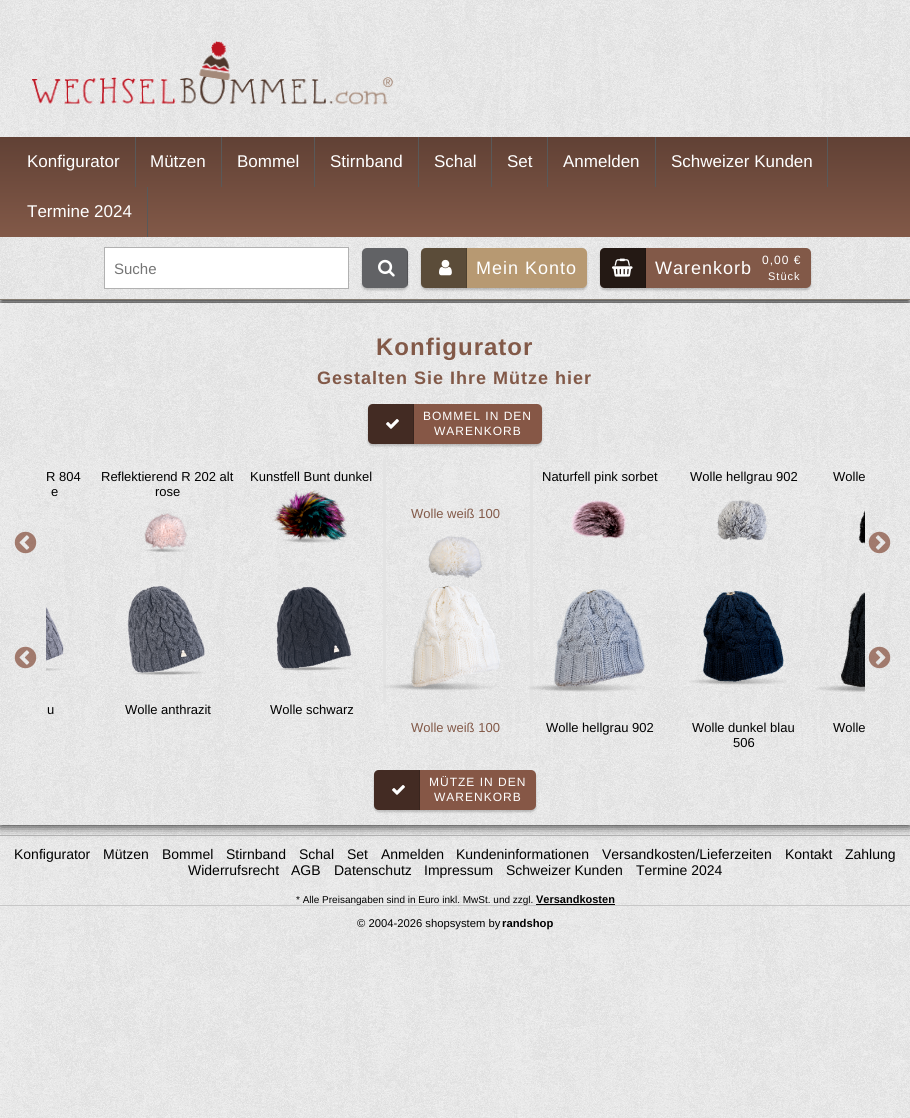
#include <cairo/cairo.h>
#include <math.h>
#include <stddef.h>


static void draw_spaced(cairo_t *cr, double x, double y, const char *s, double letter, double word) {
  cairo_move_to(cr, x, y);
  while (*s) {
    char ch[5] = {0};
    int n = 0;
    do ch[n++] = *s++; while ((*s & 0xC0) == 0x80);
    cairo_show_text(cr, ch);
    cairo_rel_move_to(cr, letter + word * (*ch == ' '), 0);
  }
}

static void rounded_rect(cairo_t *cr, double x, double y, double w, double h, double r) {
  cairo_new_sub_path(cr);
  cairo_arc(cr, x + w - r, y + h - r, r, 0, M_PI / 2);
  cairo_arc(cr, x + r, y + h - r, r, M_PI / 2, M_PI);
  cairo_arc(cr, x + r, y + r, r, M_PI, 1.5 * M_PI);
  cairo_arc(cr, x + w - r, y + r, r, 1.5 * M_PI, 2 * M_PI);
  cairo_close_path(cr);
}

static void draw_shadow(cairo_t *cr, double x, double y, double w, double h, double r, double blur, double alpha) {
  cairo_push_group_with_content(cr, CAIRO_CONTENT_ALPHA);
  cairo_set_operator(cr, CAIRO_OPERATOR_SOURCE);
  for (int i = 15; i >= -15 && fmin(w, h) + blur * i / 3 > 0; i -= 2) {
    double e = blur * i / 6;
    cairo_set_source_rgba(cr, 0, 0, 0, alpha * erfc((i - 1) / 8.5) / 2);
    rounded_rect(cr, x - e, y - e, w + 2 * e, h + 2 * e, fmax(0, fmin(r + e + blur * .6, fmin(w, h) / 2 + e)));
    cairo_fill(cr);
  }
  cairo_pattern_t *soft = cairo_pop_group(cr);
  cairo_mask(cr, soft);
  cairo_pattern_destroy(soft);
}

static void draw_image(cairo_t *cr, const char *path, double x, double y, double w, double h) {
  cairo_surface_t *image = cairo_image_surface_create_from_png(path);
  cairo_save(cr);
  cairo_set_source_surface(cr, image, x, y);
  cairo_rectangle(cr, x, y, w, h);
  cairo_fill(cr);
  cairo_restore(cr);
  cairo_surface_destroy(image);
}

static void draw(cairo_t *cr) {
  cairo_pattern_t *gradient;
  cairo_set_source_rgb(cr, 1, 1, 1);
  cairo_paint(cr);
  draw_image(cr, "images/1.png", 0, 300, 910, 818);
  draw_image(cr, "images/2.png", 0, 0, 910, 137);
  draw_image(cr, "images/3.png", 32, 40, 362, 65);
  gradient = cairo_pattern_create_linear(455, 137, 455, 237);
  cairo_pattern_add_color_stop_rgba(gradient, 0, 97 / 255.0, 65 / 255.0, 53 / 255.0, 1);
  cairo_pattern_add_color_stop_rgba(gradient, 1, 130 / 255.0, 89 / 255.0, 72 / 255.0, 1);
  cairo_set_source(cr, gradient);
  cairo_pattern_destroy(gradient);
  cairo_rectangle(cr, 0, 137, 910, 100);
  cairo_fill(cr);
  cairo_set_source_rgb(cr, 89 / 255.0, 89 / 255.0, 89 / 255.0);
  cairo_rectangle(cr, 135, 137, 1, 50);
  cairo_fill(cr);
  cairo_rectangle(cr, 221, 137, 1, 50);
  cairo_fill(cr);
  cairo_rectangle(cr, 314, 137, 1, 50);
  cairo_fill(cr);
  cairo_rectangle(cr, 418, 137, 1, 50);
  cairo_fill(cr);
  cairo_rectangle(cr, 491, 137, 1, 50);
  cairo_fill(cr);
  cairo_rectangle(cr, 547, 137, 1, 50);
  cairo_fill(cr);
  cairo_rectangle(cr, 655, 137, 1, 50);
  cairo_fill(cr);
  cairo_rectangle(cr, 827, 137, 1, 50);
  cairo_fill(cr);
  cairo_rectangle(cr, 147, 187, 1, 50);
  cairo_fill(cr);
  cairo_set_source_rgb(cr, 128 / 255.0, 128 / 255.0, 128 / 255.0);
  draw_shadow(cr, 2, 242, 906, 59, 0, 1, 1);
  cairo_save(cr);
  cairo_set_fill_rule(cr, CAIRO_FILL_RULE_EVEN_ODD);
  cairo_new_path(cr);
  cairo_move_to(cr, 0, 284);
  cairo_line_to(cr, 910, 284);
  cairo_line_to(cr, 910, 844);
  cairo_line_to(cr, 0, 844);
  cairo_close_path(cr);
  cairo_move_to(cr, 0, 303);
  cairo_line_to(cr, 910, 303);
  cairo_line_to(cr, 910, 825);
  cairo_line_to(cr, 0, 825);
  cairo_close_path(cr);
  cairo_clip(cr);
  cairo_set_source_rgb(cr, 0, 0, 0);
  draw_shadow(cr, 0, 303, 910, 522, 0, 6, 0.99);
  cairo_restore(cr);
  draw_image(cr, "images/4.png", 0, 237, 910, 62);
  cairo_set_source_rgb(cr, 132 / 255.0, 124 / 255.0, 113 / 255.0);
  cairo_rectangle(cr, 0, 299, 910, 1);
  cairo_fill(cr);
  cairo_set_source_rgb(cr, 1, 1, 1);
  cairo_rectangle(cr, 104.5, 247.5, 244, 41);
  cairo_fill_preserve(cr);
  cairo_set_source_rgb(cr, 177 / 255.0, 177 / 255.0, 177 / 255.0);
  cairo_set_line_width(cr, 1);
  cairo_stroke(cr);
  cairo_set_source_rgb(cr, 0, 0, 0);
  draw_shadow(cr, 362, 250, 46, 40, 5, 1, 0.2);
  cairo_set_source_rgb(cr, 195 / 255.0, 197 / 255.0, 202 / 255.0);
  rounded_rect(cr, 362, 248, 46, 40, 5);
  cairo_fill(cr);
  cairo_set_source_rgba(cr, 0, 0, 0, 0.5);
  rounded_rect(cr, 362, 248, 46, 40, 5);
  cairo_fill(cr);
  cairo_set_source_rgba(cr, 0, 0, 0, 0.15);
  cairo_rectangle(cr, 407, 251, 1, 35);
  cairo_fill(cr);
  draw_image(cr, "images/5.png", 378, 259, 17, 18);
  cairo_set_source_rgb(cr, 0, 0, 0);
  draw_shadow(cr, 421, 250, 166, 40, 5, 1, 0.2);
  cairo_set_source_rgb(cr, 183 / 255.0, 153 / 255.0, 114 / 255.0);
  rounded_rect(cr, 421, 248, 166, 40, 5);
  cairo_fill(cr);
  cairo_set_source_rgba(cr, 0, 0, 0, 0.5);
  cairo_new_path(cr);
  cairo_move_to(cr, 426, 248);
  cairo_line_to(cr, 467, 248);
  cairo_line_to(cr, 467, 288);
  cairo_line_to(cr, 426, 288);
  cairo_curve_to(cr, 423, 288, 421, 286, 421, 283);
  cairo_line_to(cr, 421, 253);
  cairo_curve_to(cr, 421, 250, 423, 248, 426, 248);
  cairo_close_path(cr);
  cairo_fill(cr);
  cairo_set_source_rgb(cr, 78 / 255.0, 65 / 255.0, 48 / 255.0);
  cairo_rectangle(cr, 466, 248, 1, 40);
  cairo_fill(cr);
  draw_image(cr, "images/6.png", 439, 259, 13, 17);
  cairo_set_source_rgb(cr, 0, 0, 0);
  draw_shadow(cr, 600, 250, 211, 40, 5, 1, 0.2);
  cairo_set_source_rgb(cr, 130 / 255.0, 89 / 255.0, 72 / 255.0);
  rounded_rect(cr, 600, 248, 211, 40, 5);
  cairo_fill(cr);
  cairo_set_source_rgba(cr, 0, 0, 0, 0.72);
  cairo_new_path(cr);
  cairo_move_to(cr, 605, 248);
  cairo_line_to(cr, 646, 248);
  cairo_line_to(cr, 646, 288);
  cairo_line_to(cr, 605, 288);
  cairo_curve_to(cr, 602, 288, 600, 286, 600, 283);
  cairo_line_to(cr, 600, 253);
  cairo_curve_to(cr, 600, 250, 602, 248, 605, 248);
  cairo_close_path(cr);
  cairo_fill(cr);
  cairo_set_source_rgb(cr, 31 / 255.0, 21 / 255.0, 17 / 255.0);
  cairo_rectangle(cr, 645, 248, 1, 40);
  cairo_fill(cr);
  draw_image(cr, "images/7.png", 612, 258, 21, 19);
  draw_image(cr, "images/8.png", 0, 389, 910, 70);
  cairo_set_source_rgb(cr, 0, 0, 0);
  draw_shadow(cr, 368, 406, 174, 40, 5, 1, 0.2);
  cairo_set_source_rgb(cr, 134 / 255.0, 87 / 255.0, 70 / 255.0);
  rounded_rect(cr, 368, 404, 174, 40, 5);
  cairo_fill(cr);
  cairo_set_source_rgba(cr, 0, 0, 0, 0.5);
  cairo_new_path(cr);
  cairo_move_to(cr, 373, 404);
  cairo_line_to(cr, 414, 404);
  cairo_line_to(cr, 414, 444);
  cairo_line_to(cr, 373, 444);
  cairo_curve_to(cr, 370, 444, 368, 442, 368, 439);
  cairo_line_to(cr, 368, 409);
  cairo_curve_to(cr, 368, 406, 370, 404, 373, 404);
  cairo_close_path(cr);
  cairo_fill(cr);
  cairo_set_source_rgb(cr, 57 / 255.0, 37 / 255.0, 30 / 255.0);
  cairo_rectangle(cr, 413, 404, 1, 40);
  cairo_fill(cr);
  draw_image(cr, "images/9.png", 386, 419, 13, 10);
  cairo_set_source_rgb(cr, 227 / 255.0, 227 / 255.0, 227 / 255.0);
  cairo_rectangle(cr, 530, 459, 3, 243);
  cairo_fill(cr);
  cairo_rectangle(cr, 383, 459, 3, 243);
  cairo_fill(cr);
  draw_image(cr, "images/10.png", 144, 512, 44, 40);
  draw_image(cr, "images/11.png", 272, 490, 75, 53);
  draw_image(cr, "images/12.png", 571, 500, 56, 39);
  draw_image(cr, "images/13.png", 717, 500, 51, 41);
  draw_image(cr, "images/14.png", 858, 510, 7, 34);
  draw_image(cr, "images/15.png", 428, 536, 55, 42);
  draw_image(cr, "images/16.png", 14, 531, 23, 23);
  draw_image(cr, "images/17.png", 868, 531, 23, 23);
  draw_image(cr, "images/18.png", 14, 646, 23, 23);
  draw_image(cr, "images/19.png", 868, 646, 23, 23);
  draw_image(cr, "images/20.png", 46, 607, 18, 64);
  draw_image(cr, "images/21.png", 127, 586, 80, 89);
  draw_image(cr, "images/22.png", 276, 586, 76, 85);
  draw_image(cr, "images/23.png", 384, 584, 116, 107);
  draw_image(cr, "images/24.png", 528, 589, 117, 103);
  draw_image(cr, "images/25.png", 689, 590, 98, 95);
  draw_image(cr, "images/26.png", 816, 592, 49, 100);
  draw_image(cr, "images/8.png", 0, 755, 910, 70);
  cairo_set_source_rgb(cr, 0, 0, 0);
  draw_shadow(cr, 374, 772, 162, 40, 5, 1, 0.2);
  cairo_set_source_rgb(cr, 134 / 255.0, 87 / 255.0, 70 / 255.0);
  rounded_rect(cr, 374, 770, 162, 40, 5);
  cairo_fill(cr);
  cairo_set_source_rgba(cr, 0, 0, 0, 0.5);
  cairo_new_path(cr);
  cairo_move_to(cr, 379, 770);
  cairo_line_to(cr, 420, 770);
  cairo_line_to(cr, 420, 810);
  cairo_line_to(cr, 379, 810);
  cairo_curve_to(cr, 376, 810, 374, 808, 374, 805);
  cairo_line_to(cr, 374, 775);
  cairo_curve_to(cr, 374, 772, 376, 770, 379, 770);
  cairo_close_path(cr);
  cairo_fill(cr);
  cairo_set_source_rgb(cr, 57 / 255.0, 37 / 255.0, 30 / 255.0);
  cairo_rectangle(cr, 419, 770, 1, 40);
  cairo_fill(cr);
  draw_image(cr, "images/9.png", 392, 785, 13, 10);
  cairo_set_source_rgb(cr, 177 / 255.0, 177 / 255.0, 177 / 255.0);
  cairo_rectangle(cr, 0, 835, 910, 1);
  cairo_fill(cr);
  cairo_set_source_rgb(cr, 0, 0, 0);
  cairo_rectangle(cr, 536, 904, 79, 1);
  cairo_fill(cr);
  cairo_set_source_rgb(cr, 199 / 255.0, 199 / 255.0, 199 / 255.0);
  cairo_rectangle(cr, 0, 905, 910, 1);
  cairo_fill(cr);
  cairo_select_font_face(cr, "Liberation Sans", CAIRO_FONT_SLANT_NORMAL, CAIRO_FONT_WEIGHT_NORMAL);
  cairo_set_font_size(cr, 17);
  cairo_set_source_rgb(cr, 1, 1, 1);
  cairo_move_to(cr, 27, 167);
  cairo_show_text(cr, "Konfigurator");
  cairo_move_to(cr, 150, 167);
  cairo_show_text(cr, "Mützen");
  cairo_move_to(cr, 237, 167);
  cairo_show_text(cr, "Bommel");
  cairo_move_to(cr, 330, 167);
  cairo_show_text(cr, "Stirnband");
  cairo_move_to(cr, 434, 167);
  cairo_show_text(cr, "Schal");
  cairo_move_to(cr, 507, 167);
  cairo_show_text(cr, "Set");
  cairo_move_to(cr, 563, 167);
  cairo_show_text(cr, "Anmelden");
  cairo_move_to(cr, 671, 167);
  cairo_show_text(cr, "Schweizer Kunden");
  cairo_move_to(cr, 27, 217);
  cairo_show_text(cr, "Termine 2024");
  cairo_set_font_size(cr, 15);
  cairo_set_source_rgb(cr, 117 / 255.0, 117 / 255.0, 117 / 255.0);
  cairo_move_to(cr, 114, 274);
  cairo_show_text(cr, "Suche");
  cairo_set_font_size(cr, 18);
  cairo_set_source_rgb(cr, 1, 1, 1);
  draw_spaced(cr, 476, 274, "Mein Konto", 1, 0);
  draw_spaced(cr, 655, 274, "Warenkorb", 1, 0);
  cairo_set_font_size(cr, 12);
  draw_spaced(cr, 762, 264, "0,00 €", 1, 0);
  cairo_set_font_size(cr, 11);
  draw_spaced(cr, 768, 280, "Stück", 1, 0);
  cairo_select_font_face(cr, "Liberation Sans", CAIRO_FONT_SLANT_NORMAL, CAIRO_FONT_WEIGHT_BOLD);
  cairo_set_font_size(cr, 24);
  cairo_set_source_rgb(cr, 130 / 255.0, 89 / 255.0, 72 / 255.0);
  draw_spaced(cr, 376, 355, "Konfigurator", 1, 0);
  cairo_set_font_size(cr, 18);
  draw_spaced(cr, 317, 384, "Gestalten Sie Ihre Mütze hier", 1, 0);
  cairo_select_font_face(cr, "Liberation Sans", CAIRO_FONT_SLANT_NORMAL, CAIRO_FONT_WEIGHT_NORMAL);
  cairo_set_font_size(cr, 12);
  cairo_set_source_rgb(cr, 1, 1, 1);
  draw_spaced(cr, 423, 420, "BOMMEL IN DEN", 1, 0);
  draw_spaced(cr, 434, 435, "WARENKORB", 1, 0);
  cairo_set_font_size(cr, 13);
  cairo_set_source_rgb(cr, 0, 0, 0);
  cairo_move_to(cr, 46, 481);
  cairo_show_text(cr, "R 804");
  cairo_move_to(cr, 51, 496);
  cairo_show_text(cr, "e");
  cairo_move_to(cr, 101, 481);
  cairo_show_text(cr, "Reflektierend R 202 alt");
  cairo_move_to(cr, 155, 496);
  cairo_show_text(cr, "rose");
  cairo_move_to(cr, 250, 481);
  cairo_show_text(cr, "Kunstfell Bunt dunkel");
  cairo_move_to(cr, 542, 481);
  cairo_show_text(cr, "Naturfell pink sorbet");
  cairo_move_to(cr, 690, 481);
  cairo_show_text(cr, "Wolle hellgrau 902");
  cairo_move_to(cr, 833, 481);
  cairo_show_text(cr, "Wolle");
  cairo_set_source_rgb(cr, 130 / 255.0, 89 / 255.0, 72 / 255.0);
  cairo_move_to(cr, 411, 518);
  cairo_show_text(cr, "Wolle weiß 100");
  cairo_set_source_rgb(cr, 0, 0, 0);
  cairo_move_to(cr, 47, 714);
  cairo_show_text(cr, "u");
  cairo_move_to(cr, 125, 714);
  cairo_show_text(cr, "Wolle anthrazit");
  cairo_move_to(cr, 270, 714);
  cairo_show_text(cr, "Wolle schwarz");
  cairo_set_source_rgb(cr, 130 / 255.0, 89 / 255.0, 72 / 255.0);
  cairo_move_to(cr, 411, 732);
  cairo_show_text(cr, "Wolle weiß 100");
  cairo_set_source_rgb(cr, 0, 0, 0);
  cairo_move_to(cr, 546, 732);
  cairo_show_text(cr, "Wolle hellgrau 902");
  cairo_move_to(cr, 692, 732);
  cairo_show_text(cr, "Wolle dunkel blau");
  cairo_move_to(cr, 733, 747);
  cairo_show_text(cr, "506");
  cairo_move_to(cr, 833, 732);
  cairo_show_text(cr, "Wolle");
  cairo_set_font_size(cr, 12);
  cairo_set_source_rgb(cr, 1, 1, 1);
  draw_spaced(cr, 429, 786, "MÜTZE IN DEN", 1, 0);
  draw_spaced(cr, 434, 801, "WARENKORB", 1, 0);
  cairo_set_font_size(cr, 14);
  cairo_set_source_rgb(cr, 0, 0, 0);
  cairo_move_to(cr, 14, 859);
  cairo_show_text(cr, "Konfigurator");
  cairo_move_to(cr, 103, 859);
  cairo_show_text(cr, "Mützen");
  cairo_move_to(cr, 162, 859);
  cairo_show_text(cr, "Bommel");
  cairo_move_to(cr, 226, 859);
  cairo_show_text(cr, "Stirnband");
  cairo_move_to(cr, 299, 859);
  cairo_show_text(cr, "Schal");
  cairo_move_to(cr, 347, 859);
  cairo_show_text(cr, "Set");
  cairo_move_to(cr, 381, 859);
  cairo_show_text(cr, "Anmelden");
  cairo_move_to(cr, 456, 859);
  cairo_show_text(cr, "Kundeninformationen");
  cairo_move_to(cr, 602, 859);
  cairo_show_text(cr, "Versandkosten/Lieferzeiten");
  cairo_move_to(cr, 785, 859);
  cairo_show_text(cr, "Kontakt");
  cairo_move_to(cr, 845, 859);
  cairo_show_text(cr, "Zahlung");
  cairo_move_to(cr, 188, 875);
  cairo_show_text(cr, "Widerrufsrecht");
  cairo_move_to(cr, 291, 875);
  cairo_show_text(cr, "AGB");
  cairo_move_to(cr, 334, 875);
  cairo_show_text(cr, "Datenschutz");
  cairo_move_to(cr, 424, 875);
  cairo_show_text(cr, "Impressum");
  cairo_move_to(cr, 506, 875);
  cairo_show_text(cr, "Schweizer Kunden");
  cairo_move_to(cr, 636, 875);
  cairo_show_text(cr, "Termine 2024");
  cairo_set_font_size(cr, 10);
  cairo_move_to(cr, 296, 903);
  cairo_show_text(cr, "* Alle Preisangaben sind in Euro inkl. MwSt. und zzgl.");
  cairo_select_font_face(cr, "Liberation Sans", CAIRO_FONT_SLANT_NORMAL, CAIRO_FONT_WEIGHT_BOLD);
  cairo_set_font_size(cr, 11);
  cairo_move_to(cr, 536, 903);
  cairo_show_text(cr, "Versandkosten");
  cairo_select_font_face(cr, "Liberation Sans", CAIRO_FONT_SLANT_NORMAL, CAIRO_FONT_WEIGHT_NORMAL);
  cairo_set_font_size(cr, 11.25);
  cairo_move_to(cr, 357, 927);
  cairo_show_text(cr, "© 2004-2026 shopsystem by");
  cairo_select_font_face(cr, "Liberation Sans", CAIRO_FONT_SLANT_NORMAL, CAIRO_FONT_WEIGHT_BOLD);
  cairo_move_to(cr, 502, 927);
  cairo_show_text(cr, "randshop");
}

int main(void) {
  cairo_surface_t *surface = cairo_image_surface_create(CAIRO_FORMAT_RGB24, 910, 1118);
  cairo_t *cr = cairo_create(surface);
  cairo_font_options_t *options = cairo_font_options_create();
  cairo_font_options_set_hint_metrics(options, CAIRO_HINT_METRICS_OFF);
  cairo_font_options_set_hint_style(options, CAIRO_HINT_STYLE_NONE);
  cairo_set_font_options(cr, options);
  cairo_set_miter_limit(cr, 4);
  draw(cr);
  cairo_surface_write_to_png(surface, "out.png");
  cairo_font_options_destroy(options);
  cairo_destroy(cr);
  cairo_surface_destroy(surface);
  return 0;
}
